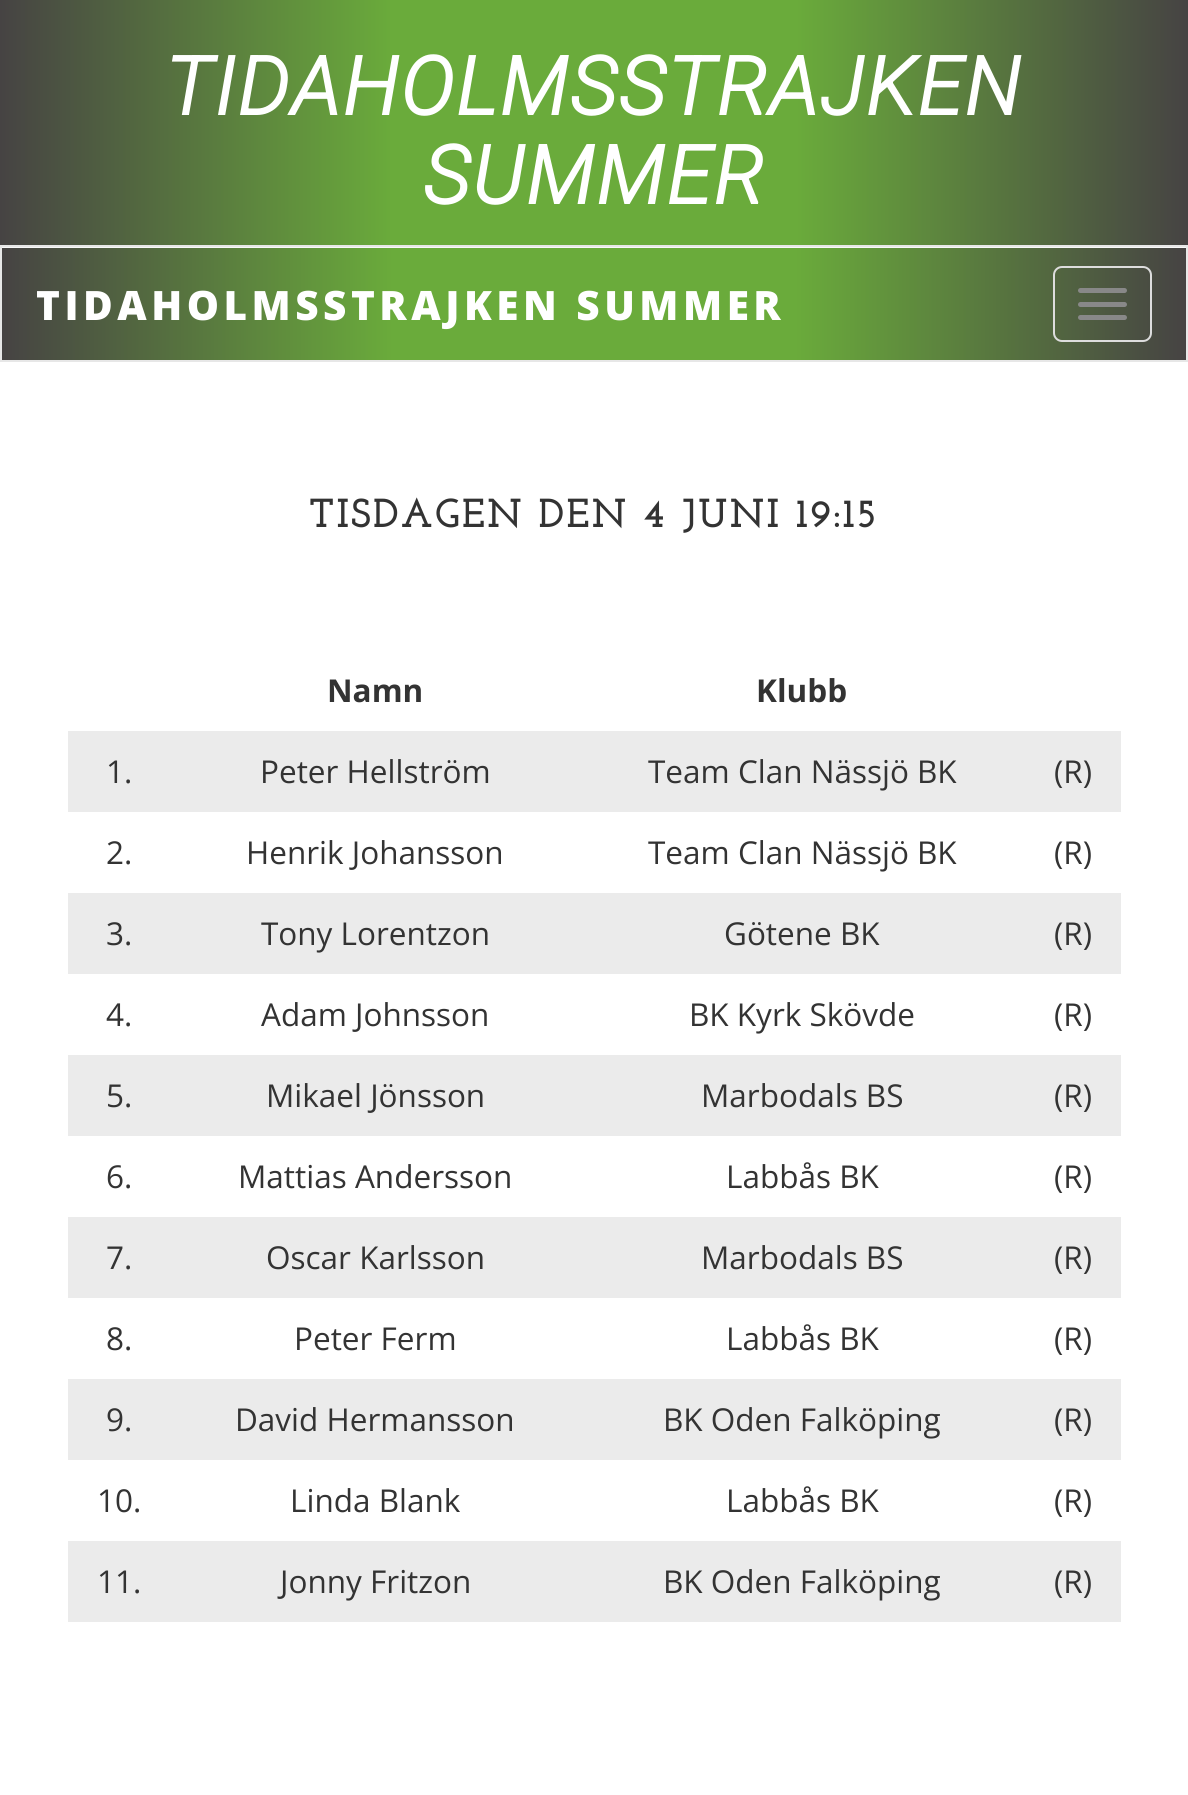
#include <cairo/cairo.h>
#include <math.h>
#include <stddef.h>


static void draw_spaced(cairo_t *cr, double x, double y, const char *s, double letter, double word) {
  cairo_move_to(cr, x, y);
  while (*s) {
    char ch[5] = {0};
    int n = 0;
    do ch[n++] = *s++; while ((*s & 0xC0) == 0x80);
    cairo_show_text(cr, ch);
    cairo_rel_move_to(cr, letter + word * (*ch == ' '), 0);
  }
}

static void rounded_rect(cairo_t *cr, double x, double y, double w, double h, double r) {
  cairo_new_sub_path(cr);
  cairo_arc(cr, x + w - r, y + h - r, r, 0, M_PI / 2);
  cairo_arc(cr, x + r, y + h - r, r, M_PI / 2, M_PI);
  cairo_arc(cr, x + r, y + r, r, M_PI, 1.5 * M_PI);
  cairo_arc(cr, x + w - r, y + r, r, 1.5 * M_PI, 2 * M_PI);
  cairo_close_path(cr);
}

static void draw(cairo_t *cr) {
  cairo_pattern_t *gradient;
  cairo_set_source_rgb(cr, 1, 1, 1);
  cairo_paint(cr);
  gradient = cairo_pattern_create_linear(0, 123, 1188, 123);
  cairo_pattern_add_color_stop_rgba(gradient, 0, 70 / 255.0, 67 / 255.0, 67 / 255.0, 1);
  cairo_pattern_add_color_stop_rgba(gradient, 0.33, 106 / 255.0, 171 / 255.0, 59 / 255.0, 1);
  cairo_pattern_add_color_stop_rgba(gradient, 0.67, 106 / 255.0, 171 / 255.0, 59 / 255.0, 1);
  cairo_pattern_add_color_stop_rgba(gradient, 1, 70 / 255.0, 67 / 255.0, 67 / 255.0, 1);
  cairo_set_source(cr, gradient);
  cairo_pattern_destroy(gradient);
  cairo_rectangle(cr, 0, 0, 1188, 245);
  cairo_fill(cr);
  cairo_set_source_rgb(cr, 248 / 255.0, 248 / 255.0, 248 / 255.0);
  cairo_rectangle(cr, 2, 247, 1184, 1);
  cairo_fill(cr);
  cairo_rectangle(cr, 1, 246, 1186, 115);
  cairo_set_source_rgb(cr, 231 / 255.0, 231 / 255.0, 231 / 255.0);
  cairo_stroke(cr);
  gradient = cairo_pattern_create_linear(2.2, 304, 1186, 304);
  cairo_pattern_add_color_stop_rgba(gradient, 0, 70 / 255.0, 67 / 255.0, 67 / 255.0, 1);
  cairo_pattern_add_color_stop_rgba(gradient, 0.33, 106 / 255.0, 171 / 255.0, 59 / 255.0, 1);
  cairo_pattern_add_color_stop_rgba(gradient, 0.67, 106 / 255.0, 171 / 255.0, 59 / 255.0, 1);
  cairo_pattern_add_color_stop_rgba(gradient, 1, 70 / 255.0, 67 / 255.0, 67 / 255.0, 1);
  cairo_set_source(cr, gradient);
  cairo_pattern_destroy(gradient);
  cairo_rectangle(cr, 2, 248, 1184, 112);
  cairo_fill(cr);
  rounded_rect(cr, 1054, 267, 97, 74, 8);
  cairo_set_source_rgb(cr, 221 / 255.0, 221 / 255.0, 221 / 255.0);
  cairo_stroke(cr);
  cairo_set_source_rgb(cr, 136 / 255.0, 136 / 255.0, 136 / 255.0);
  rounded_rect(cr, 1078, 288, 49, 5, 2.5);
  cairo_fill(cr);
  rounded_rect(cr, 1078, 302, 49, 5, 2.5);
  cairo_fill(cr);
  rounded_rect(cr, 1078, 315, 49, 5, 2.5);
  cairo_fill(cr);
  cairo_set_source_rgb(cr, 235 / 255.0, 235 / 255.0, 235 / 255.0);
  cairo_rectangle(cr, 68, 731, 1053, 81);
  cairo_fill(cr);
  cairo_rectangle(cr, 68, 893, 1053, 81);
  cairo_fill(cr);
  cairo_rectangle(cr, 68, 1055, 1053, 81);
  cairo_fill(cr);
  cairo_rectangle(cr, 68, 1217, 1053, 81);
  cairo_fill(cr);
  cairo_rectangle(cr, 68, 1379, 1053, 81);
  cairo_fill(cr);
  cairo_rectangle(cr, 68, 1541, 1053, 81);
  cairo_fill(cr);
  cairo_select_font_face(cr, "Roboto", CAIRO_FONT_SLANT_ITALIC, CAIRO_FONT_WEIGHT_BOLD);
  cairo_set_font_size(cr, 81);
  cairo_set_source_rgb(cr, 1, 1, 1);
  draw_spaced(cr, 165, 115, "TIDAHOLMSSTRAJKEN", 2.25, 0);
  draw_spaced(cr, 423, 204, "SUMMER", 2.25, 0);
  cairo_select_font_face(cr, "Open Sans ExtraBold", CAIRO_FONT_SLANT_NORMAL, CAIRO_FONT_WEIGHT_NORMAL);
  cairo_set_font_size(cr, 40.5);
  draw_spaced(cr, 36, 320, "TIDAHOLMSSTRAJKEN SUMMER", 4.5, 0);
  cairo_select_font_face(cr, "Josefin Slab", CAIRO_FONT_SLANT_NORMAL, CAIRO_FONT_WEIGHT_BOLD);
  cairo_set_source_rgb(cr, 51 / 255.0, 51 / 255.0, 51 / 255.0);
  draw_spaced(cr, 309, 527, "TISDAGEN DEN 4 JUNI 19:15", 2.25, 0);
  cairo_select_font_face(cr, "Open Sans", CAIRO_FONT_SLANT_NORMAL, CAIRO_FONT_WEIGHT_BOLD);
  cairo_set_font_size(cr, 31.5);
  cairo_move_to(cr, 327, 702);
  cairo_show_text(cr, "Namn");
  cairo_move_to(cr, 756, 702);
  cairo_show_text(cr, "Klubb");
  cairo_select_font_face(cr, "Open Sans", CAIRO_FONT_SLANT_NORMAL, CAIRO_FONT_WEIGHT_NORMAL);
  cairo_move_to(cr, 106, 783);
  cairo_show_text(cr, "1.");
  cairo_move_to(cr, 260, 783);
  cairo_show_text(cr, "Peter Hellström");
  cairo_move_to(cr, 648, 783);
  cairo_show_text(cr, "Team Clan Nässjö BK");
  cairo_move_to(cr, 1054, 783);
  cairo_show_text(cr, "(R)");
  cairo_move_to(cr, 106, 864);
  cairo_show_text(cr, "2.");
  cairo_move_to(cr, 246, 864);
  cairo_show_text(cr, "Henrik Johansson");
  cairo_move_to(cr, 648, 864);
  cairo_show_text(cr, "Team Clan Nässjö BK");
  cairo_move_to(cr, 1054, 864);
  cairo_show_text(cr, "(R)");
  cairo_move_to(cr, 106, 945);
  cairo_show_text(cr, "3.");
  cairo_move_to(cr, 261, 945);
  cairo_show_text(cr, "Tony Lorentzon");
  cairo_move_to(cr, 724, 945);
  cairo_show_text(cr, "Götene BK");
  cairo_move_to(cr, 1054, 945);
  cairo_show_text(cr, "(R)");
  cairo_move_to(cr, 106, 1026);
  cairo_show_text(cr, "4.");
  cairo_move_to(cr, 261, 1026);
  cairo_show_text(cr, "Adam Johnsson");
  cairo_move_to(cr, 689, 1026);
  cairo_show_text(cr, "BK Kyrk Skövde");
  cairo_move_to(cr, 1054, 1026);
  cairo_show_text(cr, "(R)");
  cairo_move_to(cr, 106, 1107);
  cairo_show_text(cr, "5.");
  cairo_move_to(cr, 266, 1107);
  cairo_show_text(cr, "Mikael Jönsson");
  cairo_move_to(cr, 701, 1107);
  cairo_show_text(cr, "Marbodals BS");
  cairo_move_to(cr, 1054, 1107);
  cairo_show_text(cr, "(R)");
  cairo_move_to(cr, 106, 1188);
  cairo_show_text(cr, "6.");
  cairo_move_to(cr, 238, 1188);
  cairo_show_text(cr, "Mattias Andersson");
  cairo_move_to(cr, 726, 1188);
  cairo_show_text(cr, "Labbås BK");
  cairo_move_to(cr, 1054, 1188);
  cairo_show_text(cr, "(R)");
  cairo_move_to(cr, 106, 1269);
  cairo_show_text(cr, "7.");
  cairo_move_to(cr, 266, 1269);
  cairo_show_text(cr, "Oscar Karlsson");
  cairo_move_to(cr, 701, 1269);
  cairo_show_text(cr, "Marbodals BS");
  cairo_move_to(cr, 1054, 1269);
  cairo_show_text(cr, "(R)");
  cairo_move_to(cr, 106, 1350);
  cairo_show_text(cr, "8.");
  cairo_move_to(cr, 294, 1350);
  cairo_show_text(cr, "Peter Ferm");
  cairo_move_to(cr, 726, 1350);
  cairo_show_text(cr, "Labbås BK");
  cairo_move_to(cr, 1054, 1350);
  cairo_show_text(cr, "(R)");
  cairo_move_to(cr, 106, 1431);
  cairo_show_text(cr, "9.");
  cairo_move_to(cr, 235, 1431);
  cairo_show_text(cr, "David Hermansson");
  cairo_move_to(cr, 663, 1431);
  cairo_show_text(cr, "BK Oden Falköping");
  cairo_move_to(cr, 1054, 1431);
  cairo_show_text(cr, "(R)");
  cairo_move_to(cr, 97, 1512);
  cairo_show_text(cr, "10.");
  cairo_move_to(cr, 290, 1512);
  cairo_show_text(cr, "Linda Blank");
  cairo_move_to(cr, 726, 1512);
  cairo_show_text(cr, "Labbås BK");
  cairo_move_to(cr, 1054, 1512);
  cairo_show_text(cr, "(R)");
  cairo_move_to(cr, 97, 1593);
  cairo_show_text(cr, "11.");
  cairo_move_to(cr, 280, 1593);
  cairo_show_text(cr, "Jonny Fritzon");
  cairo_move_to(cr, 663, 1593);
  cairo_show_text(cr, "BK Oden Falköping");
  cairo_move_to(cr, 1054, 1593);
  cairo_show_text(cr, "(R)");
}

int main(void) {
  cairo_surface_t *surface = cairo_image_surface_create(CAIRO_FORMAT_RGB24, 1188, 1795);
  cairo_t *cr = cairo_create(surface);
  cairo_font_options_t *options = cairo_font_options_create();
  cairo_font_options_set_hint_metrics(options, CAIRO_HINT_METRICS_OFF);
  cairo_font_options_set_hint_style(options, CAIRO_HINT_STYLE_NONE);
  cairo_set_font_options(cr, options);
  cairo_set_miter_limit(cr, 4);
  draw(cr);
  cairo_surface_write_to_png(surface, "out.png");
  cairo_font_options_destroy(options);
  cairo_destroy(cr);
  cairo_surface_destroy(surface);
  return 0;
}
